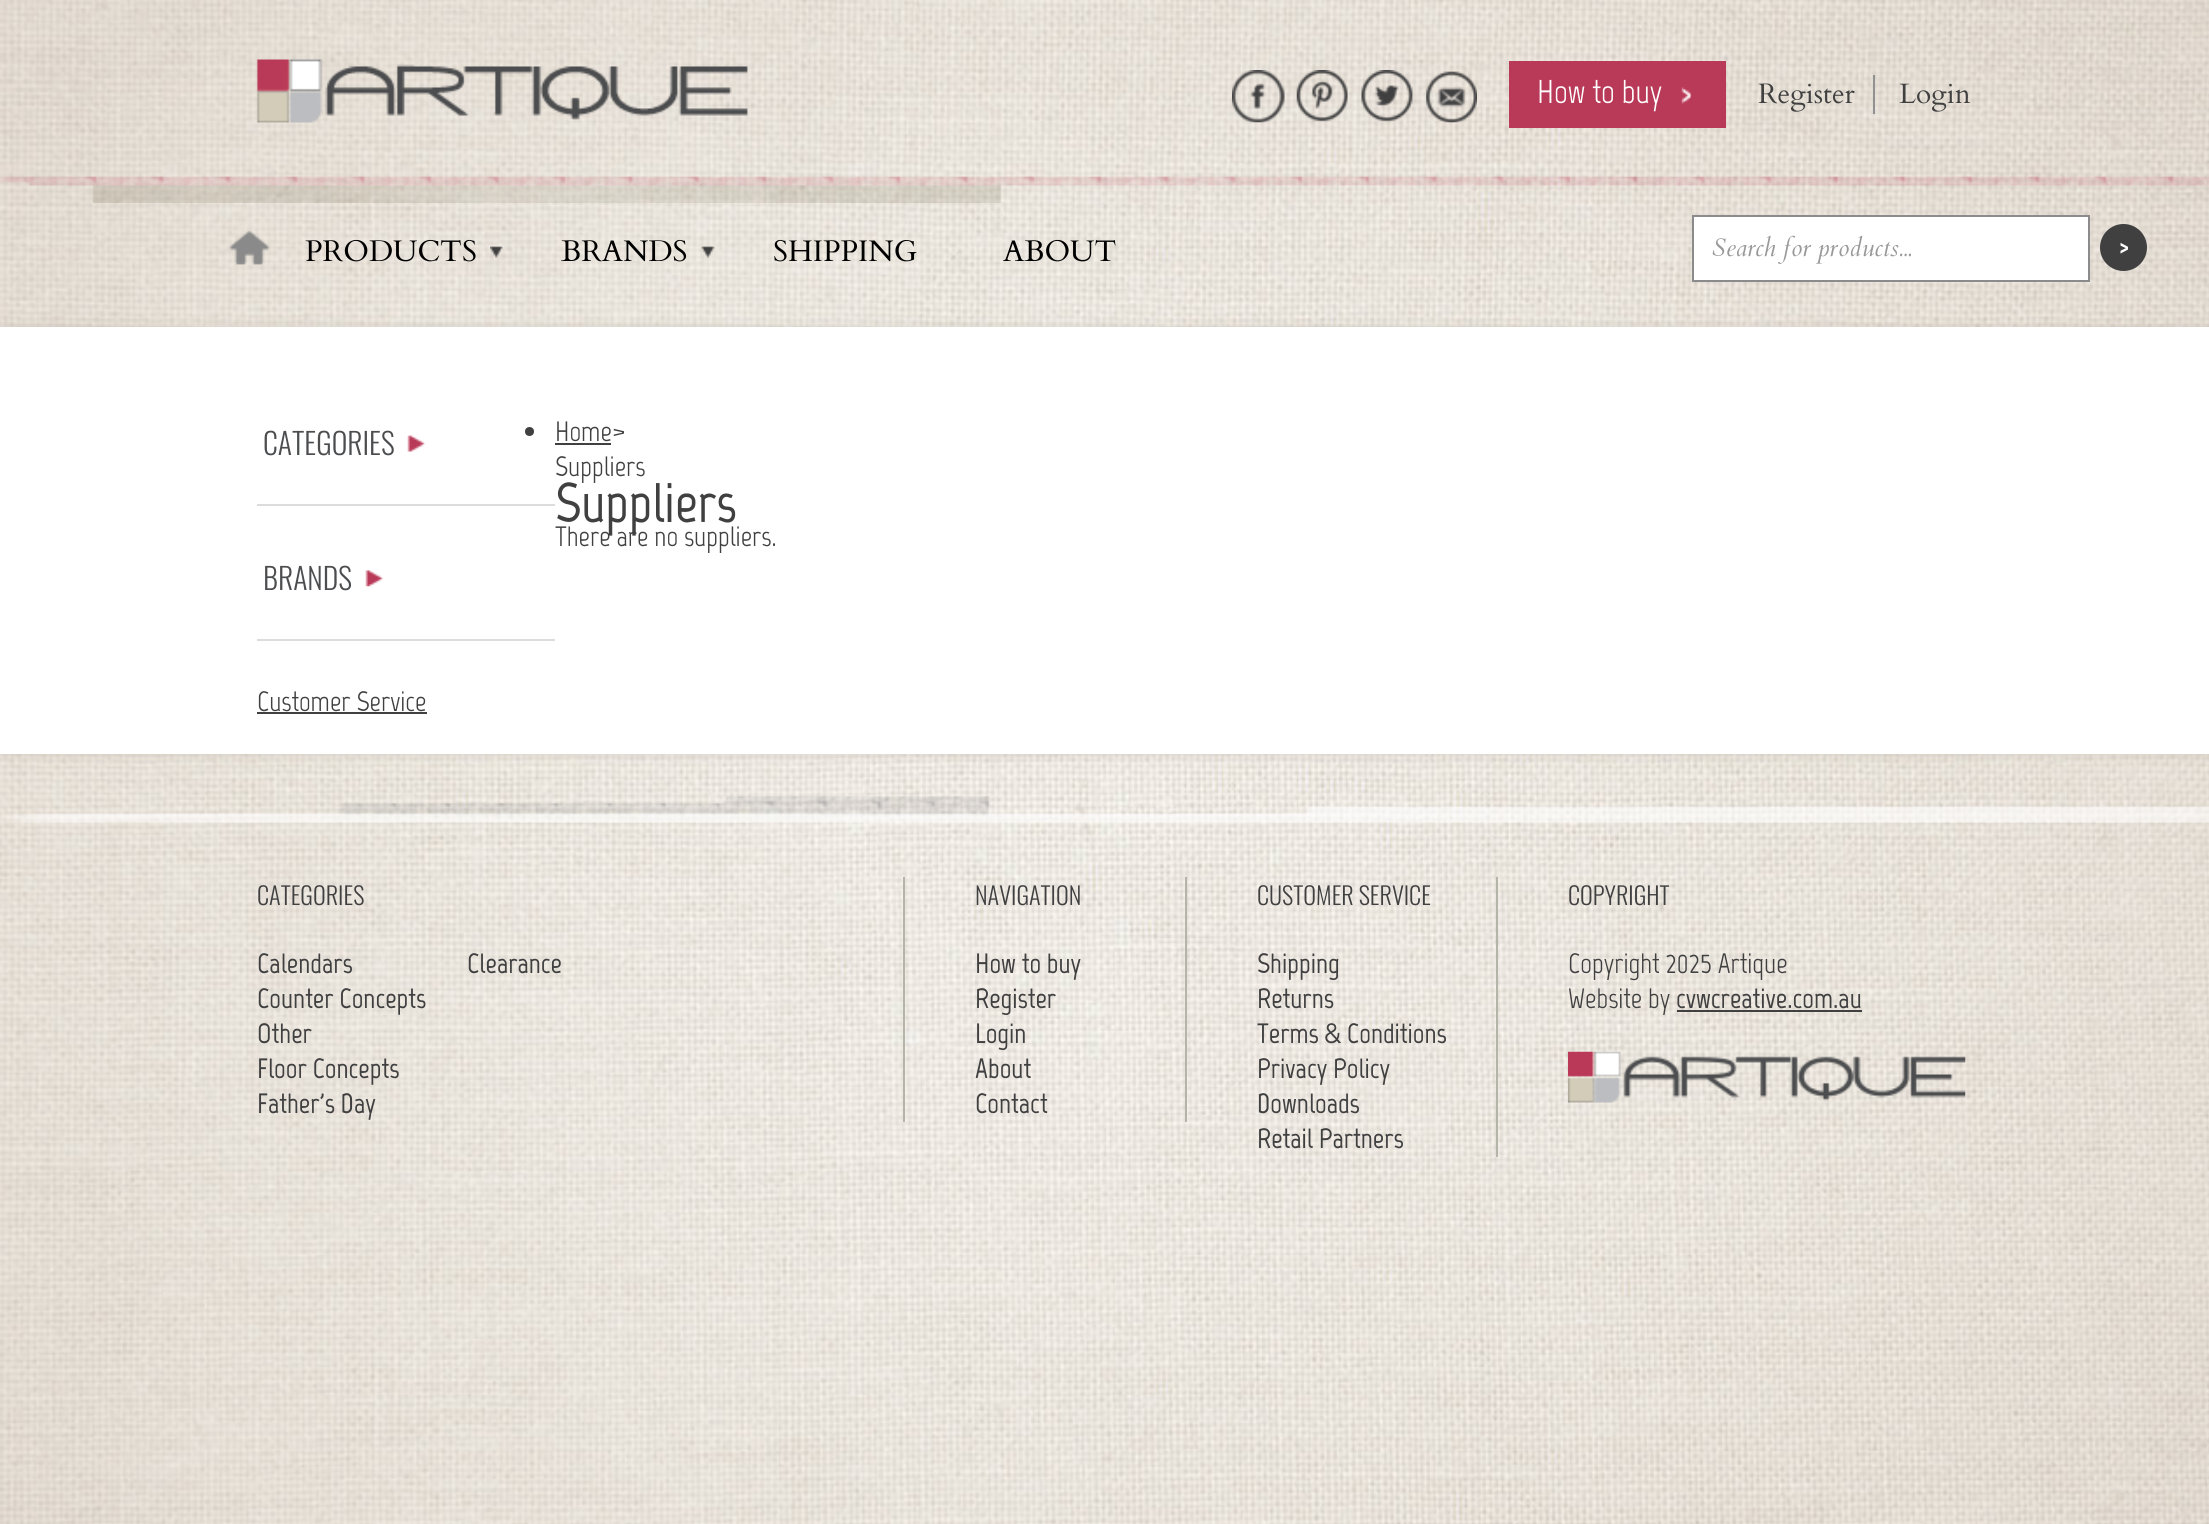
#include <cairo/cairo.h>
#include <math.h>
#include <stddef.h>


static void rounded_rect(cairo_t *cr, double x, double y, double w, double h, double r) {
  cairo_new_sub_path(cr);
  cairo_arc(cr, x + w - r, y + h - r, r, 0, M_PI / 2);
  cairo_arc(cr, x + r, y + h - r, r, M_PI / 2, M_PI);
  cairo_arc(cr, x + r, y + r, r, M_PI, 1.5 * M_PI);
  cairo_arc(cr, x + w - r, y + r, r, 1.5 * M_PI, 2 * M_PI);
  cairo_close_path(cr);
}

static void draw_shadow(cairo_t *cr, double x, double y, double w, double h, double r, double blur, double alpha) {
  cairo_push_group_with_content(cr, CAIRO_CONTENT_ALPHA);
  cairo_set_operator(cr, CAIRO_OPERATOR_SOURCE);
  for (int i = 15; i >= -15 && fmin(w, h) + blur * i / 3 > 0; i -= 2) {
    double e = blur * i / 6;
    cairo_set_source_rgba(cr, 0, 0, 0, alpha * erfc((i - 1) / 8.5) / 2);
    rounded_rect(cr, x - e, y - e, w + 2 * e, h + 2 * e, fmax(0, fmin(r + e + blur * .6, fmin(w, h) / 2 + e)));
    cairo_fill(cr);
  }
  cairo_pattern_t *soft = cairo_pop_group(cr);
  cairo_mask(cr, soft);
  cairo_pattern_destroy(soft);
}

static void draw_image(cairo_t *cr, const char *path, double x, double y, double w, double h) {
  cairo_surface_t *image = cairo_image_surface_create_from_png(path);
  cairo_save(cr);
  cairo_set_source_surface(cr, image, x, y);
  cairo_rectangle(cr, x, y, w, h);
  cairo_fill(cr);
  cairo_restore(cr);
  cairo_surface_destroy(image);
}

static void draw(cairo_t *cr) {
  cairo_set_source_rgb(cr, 1, 1, 1);
  cairo_paint(cr);
  draw_image(cr, "images/1.png", 0, 0, 2209, 1524);
  draw_image(cr, "images/2.png", 0, 176, 2209, 27);
  draw_image(cr, "images/3.png", 256, 59, 492, 64);
  draw_image(cr, "images/4.png", 1232, 70, 53, 53);
  draw_image(cr, "images/5.png", 1296, 70, 52, 52);
  draw_image(cr, "images/6.png", 1361, 70, 52, 52);
  draw_image(cr, "images/7.png", 1426, 71, 51, 52);
  cairo_set_source_rgb(cr, 185 / 255.0, 58 / 255.0, 88 / 255.0);
  cairo_rectangle(cr, 1509, 61, 217, 67);
  cairo_fill(cr);
  draw_image(cr, "images/8.png", 1681, 87, 11, 17);
  cairo_set_source_rgb(cr, 145 / 255.0, 145 / 255.0, 145 / 255.0);
  cairo_rectangle(cr, 1873, 75, 2, 39);
  cairo_fill(cr);
  draw_image(cr, "images/9.png", 229, 230, 41, 35);
  draw_image(cr, "images/10.png", 490, 246, 13, 12);
  draw_image(cr, "images/11.png", 701, 246, 14, 12);
  cairo_set_source_rgb(cr, 1, 1, 1);
  cairo_rectangle(cr, 1693, 216, 396, 65);
  cairo_fill_preserve(cr);
  cairo_set_source_rgb(cr, 139 / 255.0, 139 / 255.0, 139 / 255.0);
  cairo_stroke(cr);
  cairo_set_source_rgb(cr, 64 / 255.0, 64 / 255.0, 65 / 255.0);
  cairo_arc(cr, 2123.5, 247.5, 23.5, 0, 2 * M_PI);
  cairo_fill(cr);
  cairo_set_source_rgb(cr, 203 / 255.0, 197 / 255.0, 186 / 255.0);
  draw_shadow(cr, 2, 329, 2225, 424, 0, 6, 1);
  cairo_set_source_rgb(cr, 1, 1, 1);
  cairo_rectangle(cr, 0, 327, 2209, 427);
  cairo_fill(cr);
  cairo_set_source_rgb(cr, 220 / 255.0, 220 / 255.0, 220 / 255.0);
  cairo_rectangle(cr, 257, 504, 298, 2);
  cairo_fill(cr);
  draw_image(cr, "images/12.png", 407, 435, 19, 17);
  cairo_rectangle(cr, 257, 639, 298, 2);
  cairo_fill(cr);
  draw_image(cr, "images/13.png", 365, 570, 19, 17);
  cairo_set_source_rgb(cr, 64 / 255.0, 64 / 255.0, 65 / 255.0);
  cairo_rectangle(cr, 257, 712, 170, 2);
  cairo_fill(cr);
  cairo_arc(cr, 529.5, 431.5, 4.5, 0, 2 * M_PI);
  cairo_fill(cr);
  cairo_rectangle(cr, 555, 443, 56, 2);
  cairo_fill(cr);
  draw_image(cr, "images/14.png", 0, 796, 2209, 27);
  cairo_set_source_rgb(cr, 181 / 255.0, 180 / 255.0, 168 / 255.0);
  cairo_rectangle(cr, 903, 877, 2, 245);
  cairo_fill(cr);
  cairo_rectangle(cr, 1185, 877, 2, 245);
  cairo_fill(cr);
  cairo_rectangle(cr, 1496, 877, 2, 280);
  cairo_fill(cr);
  cairo_set_source_rgb(cr, 64 / 255.0, 64 / 255.0, 65 / 255.0);
  cairo_rectangle(cr, 1677, 1010, 185, 2);
  cairo_fill(cr);
  draw_image(cr, "images/15.png", 1568, 1051, 398, 52);
  cairo_select_font_face(cr, "Marvel", CAIRO_FONT_SLANT_NORMAL, CAIRO_FONT_WEIGHT_NORMAL);
  cairo_set_font_size(cr, 33);
  cairo_set_source_rgb(cr, 1, 1, 1);
  cairo_move_to(cr, 1537, 103);
  cairo_show_text(cr, "How to buy");
  cairo_select_font_face(cr, "Cardo", CAIRO_FONT_SLANT_NORMAL, CAIRO_FONT_WEIGHT_NORMAL);
  cairo_set_font_size(cr, 28);
  cairo_set_source_rgb(cr, 64 / 255.0, 64 / 255.0, 65 / 255.0);
  cairo_move_to(cr, 1758, 103);
  cairo_show_text(cr, "Register");
  cairo_move_to(cr, 1899, 103);
  cairo_show_text(cr, "Login");
  cairo_set_font_size(cr, 29.75);
  cairo_set_source_rgb(cr, 0, 0, 0);
  cairo_move_to(cr, 305, 261);
  cairo_show_text(cr, "PRODUCTS");
  cairo_move_to(cr, 561, 261);
  cairo_show_text(cr, "BRANDS");
  cairo_move_to(cr, 773, 261);
  cairo_show_text(cr, "SHIPPING");
  cairo_move_to(cr, 1003, 261);
  cairo_show_text(cr, "ABOUT");
  cairo_select_font_face(cr, "Cardo", CAIRO_FONT_SLANT_ITALIC, CAIRO_FONT_WEIGHT_NORMAL);
  cairo_set_font_size(cr, 25.25);
  cairo_set_source_rgb(cr, 153 / 255.0, 153 / 255.0, 153 / 255.0);
  cairo_move_to(cr, 1712, 256);
  cairo_show_text(cr, "Search for products...");
  cairo_select_font_face(cr, "Oswald", CAIRO_FONT_SLANT_NORMAL, CAIRO_FONT_WEIGHT_NORMAL);
  cairo_set_font_size(cr, 26);
  cairo_set_source_rgb(cr, 1, 1, 1);
  cairo_move_to(cr, 2119, 259);
  cairo_show_text(cr, ">");
  cairo_select_font_face(cr, "Oswald Light", CAIRO_FONT_SLANT_NORMAL, CAIRO_FONT_WEIGHT_NORMAL);
  cairo_set_font_size(cr, 29.75);
  cairo_set_source_rgb(cr, 76 / 255.0, 77 / 255.0, 79 / 255.0);
  cairo_move_to(cr, 263, 455);
  cairo_show_text(cr, "CATEGORIES");
  cairo_move_to(cr, 263, 590);
  cairo_show_text(cr, "BRANDS");
  cairo_select_font_face(cr, "Marvel", CAIRO_FONT_SLANT_NORMAL, CAIRO_FONT_WEIGHT_NORMAL);
  cairo_set_font_size(cr, 28);
  cairo_set_source_rgb(cr, 64 / 255.0, 64 / 255.0, 65 / 255.0);
  cairo_move_to(cr, 257, 711);
  cairo_show_text(cr, "Customer Service");
  cairo_move_to(cr, 555, 441);
  cairo_show_text(cr, "Home>");
  cairo_move_to(cr, 555, 476);
  cairo_show_text(cr, "Suppliers");
  cairo_select_font_face(cr, "Marvel", CAIRO_FONT_SLANT_NORMAL, CAIRO_FONT_WEIGHT_BOLD);
  cairo_set_font_size(cr, 56);
  cairo_move_to(cr, 555, 522);
  cairo_show_text(cr, "Suppliers");
  cairo_select_font_face(cr, "Marvel", CAIRO_FONT_SLANT_NORMAL, CAIRO_FONT_WEIGHT_NORMAL);
  cairo_set_font_size(cr, 28);
  cairo_move_to(cr, 555, 546);
  cairo_show_text(cr, "There are no suppliers.");
  cairo_select_font_face(cr, "Oswald Light", CAIRO_FONT_SLANT_NORMAL, CAIRO_FONT_WEIGHT_NORMAL);
  cairo_set_font_size(cr, 24.25);
  cairo_move_to(cr, 257, 905);
  cairo_show_text(cr, "CATEGORIES");
  cairo_select_font_face(cr, "Marvel", CAIRO_FONT_SLANT_NORMAL, CAIRO_FONT_WEIGHT_BOLD);
  cairo_set_font_size(cr, 28);
  cairo_move_to(cr, 257, 973);
  cairo_show_text(cr, "Calendars");
  cairo_move_to(cr, 257, 1008);
  cairo_show_text(cr, "Counter Concepts");
  cairo_move_to(cr, 257, 1043);
  cairo_show_text(cr, "Other");
  cairo_move_to(cr, 257, 1078);
  cairo_show_text(cr, "Floor Concepts");
  cairo_move_to(cr, 257, 1113);
  cairo_show_text(cr, "Father's Day");
  cairo_move_to(cr, 467, 973);
  cairo_show_text(cr, "Clearance");
  cairo_select_font_face(cr, "Oswald Light", CAIRO_FONT_SLANT_NORMAL, CAIRO_FONT_WEIGHT_NORMAL);
  cairo_set_font_size(cr, 24.25);
  cairo_move_to(cr, 975, 905);
  cairo_show_text(cr, "NAVIGATION");
  cairo_select_font_face(cr, "Marvel", CAIRO_FONT_SLANT_NORMAL, CAIRO_FONT_WEIGHT_BOLD);
  cairo_set_font_size(cr, 28);
  cairo_move_to(cr, 975, 973);
  cairo_show_text(cr, "How to buy");
  cairo_move_to(cr, 975, 1008);
  cairo_show_text(cr, "Register");
  cairo_move_to(cr, 975, 1043);
  cairo_show_text(cr, "Login");
  cairo_move_to(cr, 975, 1078);
  cairo_show_text(cr, "About");
  cairo_move_to(cr, 975, 1113);
  cairo_show_text(cr, "Contact");
  cairo_select_font_face(cr, "Oswald Light", CAIRO_FONT_SLANT_NORMAL, CAIRO_FONT_WEIGHT_NORMAL);
  cairo_set_font_size(cr, 24.25);
  cairo_move_to(cr, 1257, 905);
  cairo_show_text(cr, "CUSTOMER SERVICE");
  cairo_select_font_face(cr, "Marvel", CAIRO_FONT_SLANT_NORMAL, CAIRO_FONT_WEIGHT_BOLD);
  cairo_set_font_size(cr, 28);
  cairo_move_to(cr, 1257, 973);
  cairo_show_text(cr, "Shipping");
  cairo_move_to(cr, 1257, 1008);
  cairo_show_text(cr, "Returns");
  cairo_move_to(cr, 1257, 1043);
  cairo_show_text(cr, "Terms & Conditions");
  cairo_move_to(cr, 1257, 1078);
  cairo_show_text(cr, "Privacy Policy");
  cairo_move_to(cr, 1257, 1113);
  cairo_show_text(cr, "Downloads");
  cairo_move_to(cr, 1257, 1148);
  cairo_show_text(cr, "Retail Partners");
  cairo_select_font_face(cr, "Oswald Light", CAIRO_FONT_SLANT_NORMAL, CAIRO_FONT_WEIGHT_NORMAL);
  cairo_set_font_size(cr, 24.25);
  cairo_move_to(cr, 1568, 905);
  cairo_show_text(cr, "COPYRIGHT");
  cairo_select_font_face(cr, "Marvel", CAIRO_FONT_SLANT_NORMAL, CAIRO_FONT_WEIGHT_NORMAL);
  cairo_set_font_size(cr, 28);
  cairo_move_to(cr, 1568, 973);
  cairo_show_text(cr, "Copyright 2025 Artique");
  cairo_move_to(cr, 1568, 1008);
  cairo_show_text(cr, "Website by");
  cairo_select_font_face(cr, "Marvel", CAIRO_FONT_SLANT_NORMAL, CAIRO_FONT_WEIGHT_BOLD);
  cairo_move_to(cr, 1676, 1008);
  cairo_show_text(cr, "cvwcreative.com.au");
}

int main(void) {
  cairo_surface_t *surface = cairo_image_surface_create(CAIRO_FORMAT_RGB24, 2209, 1524);
  cairo_t *cr = cairo_create(surface);
  cairo_font_options_t *options = cairo_font_options_create();
  cairo_font_options_set_hint_metrics(options, CAIRO_HINT_METRICS_OFF);
  cairo_font_options_set_hint_style(options, CAIRO_HINT_STYLE_NONE);
  cairo_set_font_options(cr, options);
  cairo_set_miter_limit(cr, 4);
  draw(cr);
  cairo_surface_write_to_png(surface, "out.png");
  cairo_font_options_destroy(options);
  cairo_destroy(cr);
  cairo_surface_destroy(surface);
  return 0;
}
